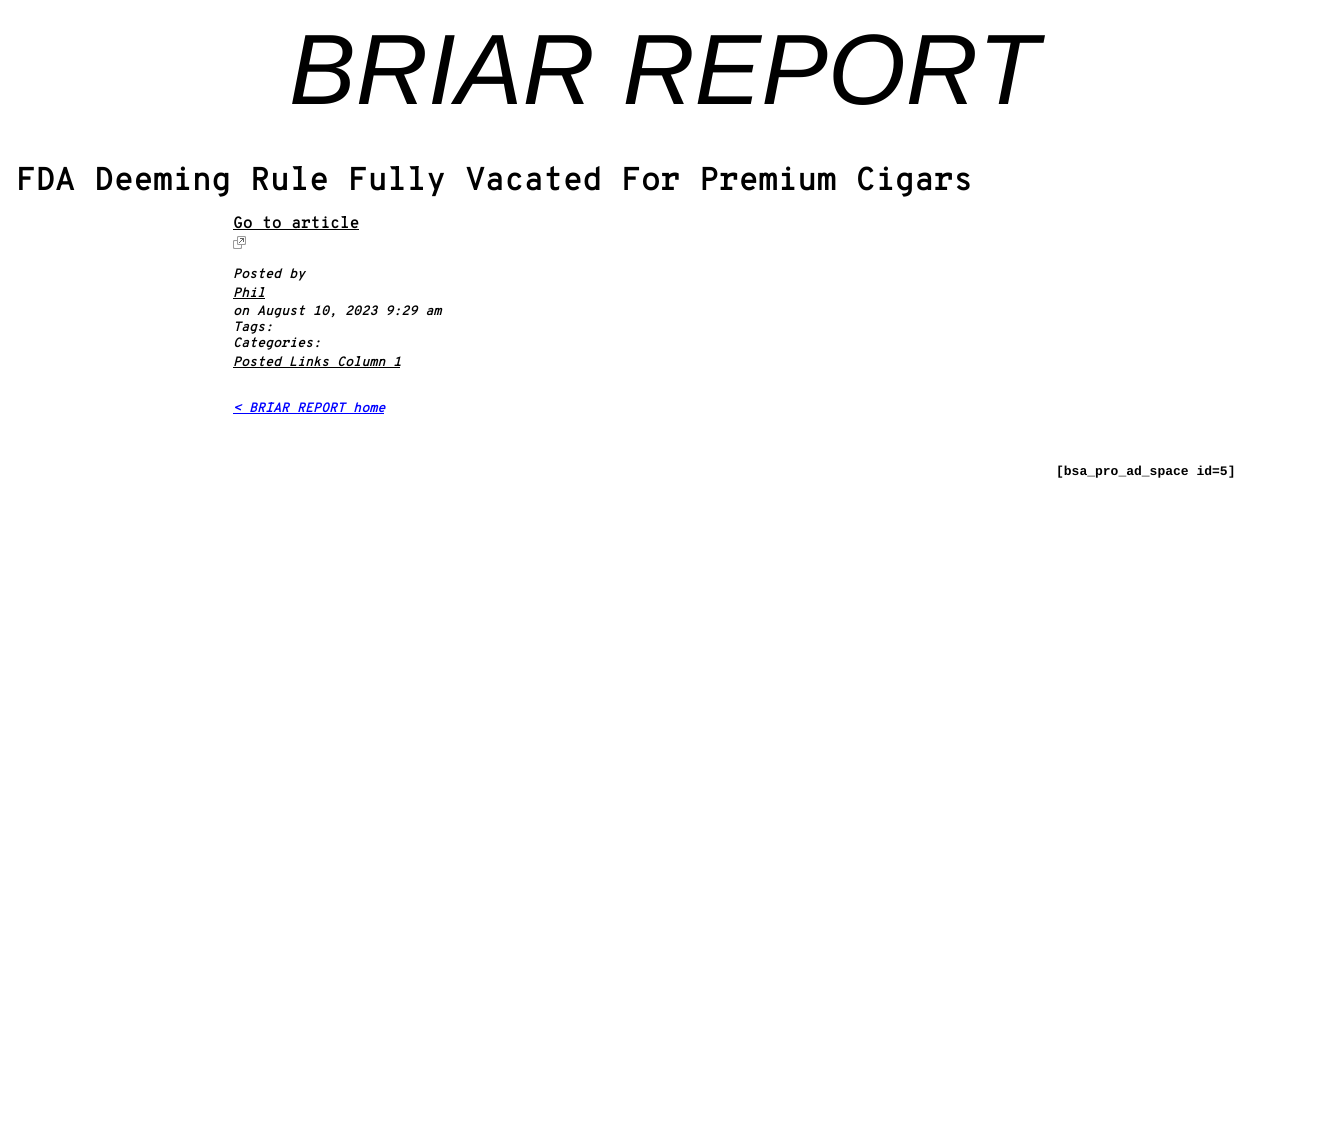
#include <cairo/cairo.h>
#include <math.h>
#include <stddef.h>


static void draw_image(cairo_t *cr, const char *path, double x, double y, double w, double h) {
  cairo_surface_t *image = cairo_image_surface_create_from_png(path);
  cairo_save(cr);
  cairo_set_source_surface(cr, image, x, y);
  cairo_rectangle(cr, x, y, w, h);
  cairo_fill(cr);
  cairo_restore(cr);
  cairo_surface_destroy(image);
}

static void draw(cairo_t *cr) {
  cairo_set_source_rgb(cr, 1, 1, 1);
  cairo_paint(cr);
  cairo_set_source_rgb(cr, 0, 0, 0);
  cairo_rectangle(cr, 233, 229, 126, 1);
  cairo_fill(cr);
  draw_image(cr, "images/1.png", 233, 236, 13, 13);
  cairo_rectangle(cr, 233, 298, 32, 1);
  cairo_fill(cr);
  cairo_rectangle(cr, 233, 367, 167, 1);
  cairo_fill(cr);
  cairo_set_source_rgb(cr, 0, 0, 1);
  cairo_rectangle(cr, 233, 413, 151, 1);
  cairo_fill(cr);
  cairo_select_font_face(cr, "Liberation Sans", CAIRO_FONT_SLANT_ITALIC, CAIRO_FONT_WEIGHT_NORMAL);
  cairo_set_font_size(cr, 100);
  cairo_set_source_rgb(cr, 0, 0, 0);
  cairo_move_to(cr, 289, 104);
  cairo_show_text(cr, "BRIAR REPORT");
  cairo_select_font_face(cr, "Overpass Mono", CAIRO_FONT_SLANT_NORMAL, CAIRO_FONT_WEIGHT_BOLD);
  cairo_set_font_size(cr, 31.7);
  cairo_move_to(cr, 16, 190);
  cairo_show_text(cr, "FDA Deeming Rule Fully Vacated For Premium Cigars");
  cairo_set_font_size(cr, 15.75);
  cairo_move_to(cr, 233, 228);
  cairo_show_text(cr, "Go to article");
  cairo_select_font_face(cr, "Overpass Mono", CAIRO_FONT_SLANT_ITALIC, CAIRO_FONT_WEIGHT_BOLD);
  cairo_set_font_size(cr, 13);
  cairo_move_to(cr, 233, 278);
  cairo_show_text(cr, "Posted by");
  cairo_move_to(cr, 233, 297);
  cairo_show_text(cr, "Phil");
  cairo_move_to(cr, 233, 315);
  cairo_show_text(cr, "on August 10, 2023 9:29 am");
  cairo_move_to(cr, 233, 331);
  cairo_show_text(cr, "Tags:");
  cairo_move_to(cr, 233, 347);
  cairo_show_text(cr, "Categories:");
  cairo_move_to(cr, 233, 366);
  cairo_show_text(cr, "Posted Links Column 1");
  cairo_set_source_rgb(cr, 0, 0, 1);
  cairo_move_to(cr, 233, 412);
  cairo_show_text(cr, "< BRIAR REPORT home");
  cairo_select_font_face(cr, "Liberation Mono", CAIRO_FONT_SLANT_NORMAL, CAIRO_FONT_WEIGHT_BOLD);
  cairo_set_source_rgb(cr, 0, 0, 0);
  cairo_move_to(cr, 1056, 475);
  cairo_show_text(cr, "[bsa_pro_ad_space id=5]");
}

int main(void) {
  cairo_surface_t *surface = cairo_image_surface_create(CAIRO_FORMAT_RGB24, 1329, 1141);
  cairo_t *cr = cairo_create(surface);
  cairo_font_options_t *options = cairo_font_options_create();
  cairo_font_options_set_hint_metrics(options, CAIRO_HINT_METRICS_OFF);
  cairo_font_options_set_hint_style(options, CAIRO_HINT_STYLE_NONE);
  cairo_set_font_options(cr, options);
  cairo_set_miter_limit(cr, 4);
  draw(cr);
  cairo_surface_write_to_png(surface, "out.png");
  cairo_font_options_destroy(options);
  cairo_destroy(cr);
  cairo_surface_destroy(surface);
  return 0;
}
